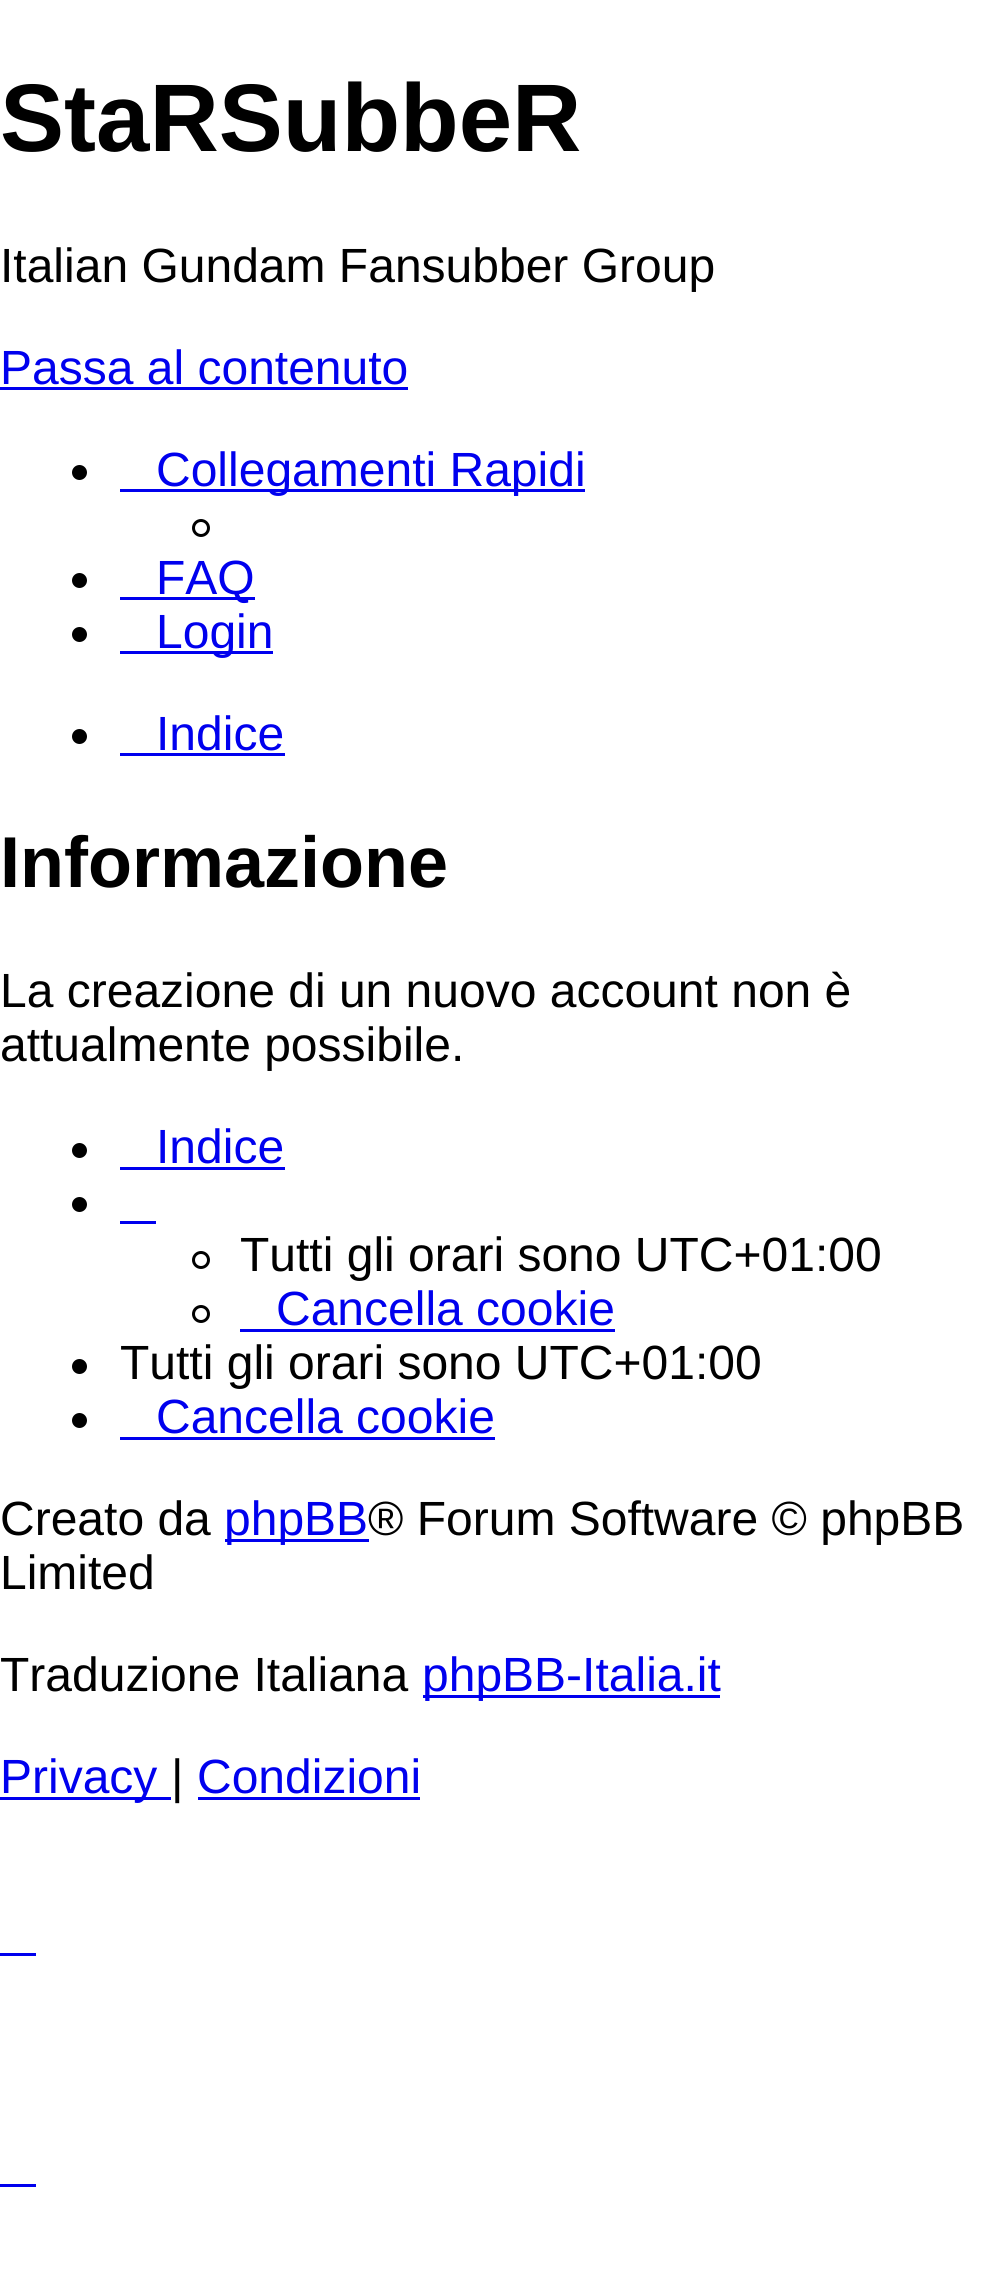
#include <cairo/cairo.h>
#include <math.h>
#include <stddef.h>


static void draw(cairo_t *cr) {
  cairo_set_source_rgb(cr, 1, 1, 1);
  cairo_paint(cr);
  cairo_set_source_rgb(cr, 0, 0, 238 / 255.0);
  cairo_rectangle(cr, 0, 387, 408, 3);
  cairo_fill(cr);
  cairo_set_source_rgb(cr, 0, 0, 0);
  cairo_arc(cr, 79.5, 472.5, 7.5, 0, 2 * M_PI);
  cairo_fill(cr);
  cairo_set_source_rgb(cr, 0, 0, 238 / 255.0);
  cairo_rectangle(cr, 120, 489, 465, 3);
  cairo_fill(cr);
  cairo_arc(cr, 201, 528, 7.5, 0, 2 * M_PI);
  cairo_set_source_rgb(cr, 0, 0, 0);
  cairo_set_line_width(cr, 3);
  cairo_stroke(cr);
  cairo_arc(cr, 79.5, 580.5, 7.5, 0, 2 * M_PI);
  cairo_fill(cr);
  cairo_set_source_rgb(cr, 0, 0, 238 / 255.0);
  cairo_rectangle(cr, 120, 597, 135, 3);
  cairo_fill(cr);
  cairo_set_source_rgb(cr, 0, 0, 0);
  cairo_arc(cr, 79.5, 634.5, 7.5, 0, 2 * M_PI);
  cairo_fill(cr);
  cairo_set_source_rgb(cr, 0, 0, 238 / 255.0);
  cairo_rectangle(cr, 120, 651, 153, 3);
  cairo_fill(cr);
  cairo_set_source_rgb(cr, 0, 0, 0);
  cairo_arc(cr, 79.5, 736.5, 7.5, 0, 2 * M_PI);
  cairo_fill(cr);
  cairo_set_source_rgb(cr, 0, 0, 238 / 255.0);
  cairo_rectangle(cr, 120, 753, 165, 3);
  cairo_fill(cr);
  cairo_set_source_rgb(cr, 0, 0, 0);
  cairo_arc(cr, 79.5, 1150.5, 7.5, 0, 2 * M_PI);
  cairo_fill(cr);
  cairo_set_source_rgb(cr, 0, 0, 238 / 255.0);
  cairo_rectangle(cr, 120, 1167, 165, 3);
  cairo_fill(cr);
  cairo_set_source_rgb(cr, 0, 0, 0);
  cairo_arc(cr, 79.5, 1204.5, 7.5, 0, 2 * M_PI);
  cairo_fill(cr);
  cairo_set_source_rgb(cr, 0, 0, 238 / 255.0);
  cairo_rectangle(cr, 120, 1221, 36, 3);
  cairo_fill(cr);
  cairo_arc(cr, 201, 1260, 7.5, 0, 2 * M_PI);
  cairo_set_source_rgb(cr, 0, 0, 0);
  cairo_stroke(cr);
  cairo_arc(cr, 201, 1314, 7.5, 0, 2 * M_PI);
  cairo_stroke(cr);
  cairo_set_source_rgb(cr, 0, 0, 238 / 255.0);
  cairo_rectangle(cr, 240, 1329, 375, 3);
  cairo_fill(cr);
  cairo_set_source_rgb(cr, 0, 0, 0);
  cairo_arc(cr, 79.5, 1366.5, 7.5, 0, 2 * M_PI);
  cairo_fill(cr);
  cairo_arc(cr, 79.5, 1420.5, 7.5, 0, 2 * M_PI);
  cairo_fill(cr);
  cairo_set_source_rgb(cr, 0, 0, 238 / 255.0);
  cairo_rectangle(cr, 120, 1437, 375, 3);
  cairo_fill(cr);
  cairo_rectangle(cr, 225, 1539, 144, 3);
  cairo_fill(cr);
  cairo_rectangle(cr, 423, 1695, 297, 3);
  cairo_fill(cr);
  cairo_rectangle(cr, 0, 1797, 156, 3);
  cairo_fill(cr);
  cairo_rectangle(cr, 156, 1797, 15, 3);
  cairo_fill(cr);
  cairo_rectangle(cr, 198, 1797, 222, 3);
  cairo_fill(cr);
  cairo_rectangle(cr, 0, 1953, 36, 3);
  cairo_fill(cr);
  cairo_rectangle(cr, 0, 2184, 36, 3);
  cairo_fill(cr);
  cairo_select_font_face(cr, "Liberation Sans", CAIRO_FONT_SLANT_NORMAL, CAIRO_FONT_WEIGHT_BOLD);
  cairo_set_font_size(cr, 96);
  cairo_set_source_rgb(cr, 0, 0, 0);
  cairo_move_to(cr, 0, 151);
  cairo_show_text(cr, "StaRSubbeR");
  cairo_select_font_face(cr, "Liberation Sans", CAIRO_FONT_SLANT_NORMAL, CAIRO_FONT_WEIGHT_NORMAL);
  cairo_set_font_size(cr, 48);
  cairo_move_to(cr, 0, 282);
  cairo_show_text(cr, "Italian Gundam Fansubber Group");
  cairo_set_source_rgb(cr, 0, 0, 238 / 255.0);
  cairo_move_to(cr, 0, 384);
  cairo_show_text(cr, "Passa al contenuto");
  cairo_move_to(cr, 156, 486);
  cairo_show_text(cr, "Collegamenti Rapidi");
  cairo_move_to(cr, 156, 594);
  cairo_show_text(cr, "FAQ");
  cairo_move_to(cr, 156, 648);
  cairo_show_text(cr, "Login");
  cairo_move_to(cr, 156, 750);
  cairo_show_text(cr, "Indice");
  cairo_select_font_face(cr, "Liberation Sans", CAIRO_FONT_SLANT_NORMAL, CAIRO_FONT_WEIGHT_BOLD);
  cairo_set_font_size(cr, 72);
  cairo_set_source_rgb(cr, 0, 0, 0);
  cairo_move_to(cr, 0, 887);
  cairo_show_text(cr, "Informazione");
  cairo_select_font_face(cr, "Liberation Sans", CAIRO_FONT_SLANT_NORMAL, CAIRO_FONT_WEIGHT_NORMAL);
  cairo_set_font_size(cr, 48);
  cairo_move_to(cr, 0, 1007);
  cairo_show_text(cr, "La creazione di un nuovo account non è");
  cairo_move_to(cr, 0, 1061);
  cairo_show_text(cr, "attualmente possibile.");
  cairo_set_source_rgb(cr, 0, 0, 238 / 255.0);
  cairo_move_to(cr, 156, 1163);
  cairo_show_text(cr, "Indice");
  cairo_set_source_rgb(cr, 0, 0, 0);
  cairo_move_to(cr, 240, 1271);
  cairo_show_text(cr, "Tutti gli orari sono UTC+01:00");
  cairo_set_source_rgb(cr, 0, 0, 238 / 255.0);
  cairo_move_to(cr, 276, 1325);
  cairo_show_text(cr, "Cancella cookie");
  cairo_set_source_rgb(cr, 0, 0, 0);
  cairo_move_to(cr, 120, 1379);
  cairo_show_text(cr, "Tutti gli orari sono UTC+01:00");
  cairo_set_source_rgb(cr, 0, 0, 238 / 255.0);
  cairo_move_to(cr, 156, 1433);
  cairo_show_text(cr, "Cancella cookie");
  cairo_set_source_rgb(cr, 0, 0, 0);
  cairo_move_to(cr, 0, 1535);
  cairo_show_text(cr, "Creato da");
  cairo_set_source_rgb(cr, 0, 0, 238 / 255.0);
  cairo_move_to(cr, 224, 1535);
  cairo_show_text(cr, "phpBB");
  cairo_set_source_rgb(cr, 0, 0, 0);
  cairo_move_to(cr, 368, 1535);
  cairo_show_text(cr, "® Forum Software © phpBB");
  cairo_move_to(cr, 0, 1589);
  cairo_show_text(cr, "Limited");
  cairo_move_to(cr, 0, 1691);
  cairo_show_text(cr, "Traduzione Italiana");
  cairo_set_source_rgb(cr, 0, 0, 238 / 255.0);
  cairo_move_to(cr, 422, 1691);
  cairo_show_text(cr, "phpBB-Italia.it");
  cairo_move_to(cr, 0, 1793);
  cairo_show_text(cr, "Privacy");
  cairo_set_source_rgb(cr, 0, 0, 0);
  cairo_move_to(cr, 171, 1793);
  cairo_show_text(cr, "|");
  cairo_set_source_rgb(cr, 0, 0, 238 / 255.0);
  cairo_move_to(cr, 197, 1793);
  cairo_show_text(cr, "Condizioni");
}

int main(void) {
  cairo_surface_t *surface = cairo_image_surface_create(CAIRO_FORMAT_RGB24, 1005, 2269);
  cairo_t *cr = cairo_create(surface);
  cairo_font_options_t *options = cairo_font_options_create();
  cairo_font_options_set_hint_metrics(options, CAIRO_HINT_METRICS_OFF);
  cairo_font_options_set_hint_style(options, CAIRO_HINT_STYLE_NONE);
  cairo_set_font_options(cr, options);
  cairo_set_miter_limit(cr, 4);
  draw(cr);
  cairo_surface_write_to_png(surface, "out.png");
  cairo_font_options_destroy(options);
  cairo_destroy(cr);
  cairo_surface_destroy(surface);
  return 0;
}
